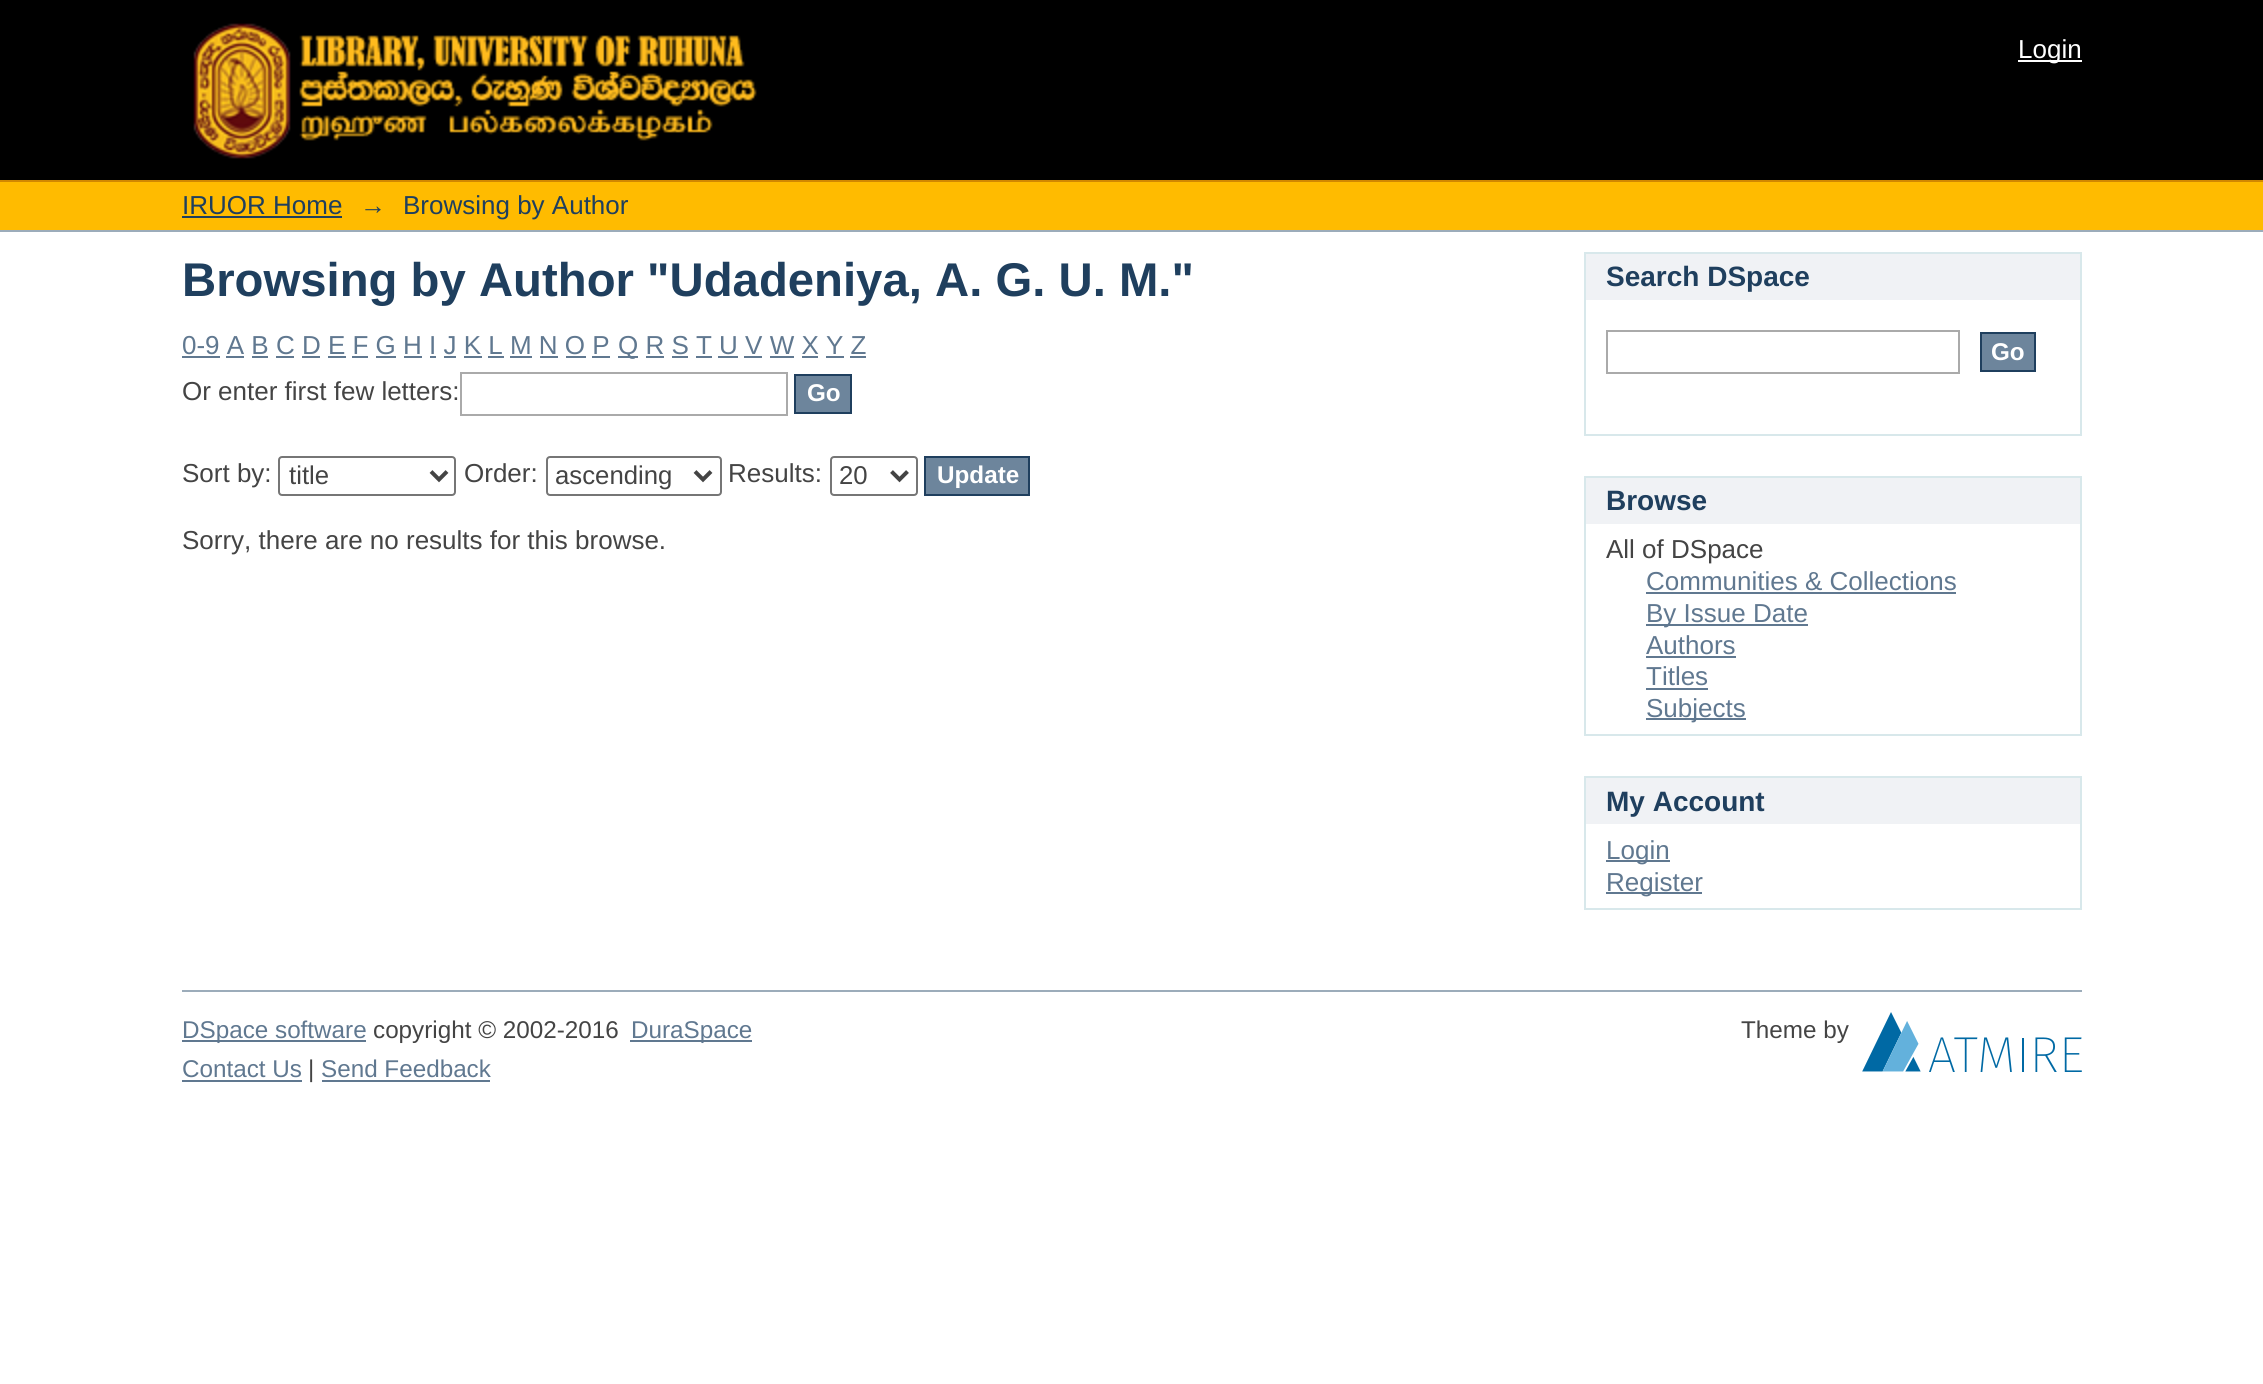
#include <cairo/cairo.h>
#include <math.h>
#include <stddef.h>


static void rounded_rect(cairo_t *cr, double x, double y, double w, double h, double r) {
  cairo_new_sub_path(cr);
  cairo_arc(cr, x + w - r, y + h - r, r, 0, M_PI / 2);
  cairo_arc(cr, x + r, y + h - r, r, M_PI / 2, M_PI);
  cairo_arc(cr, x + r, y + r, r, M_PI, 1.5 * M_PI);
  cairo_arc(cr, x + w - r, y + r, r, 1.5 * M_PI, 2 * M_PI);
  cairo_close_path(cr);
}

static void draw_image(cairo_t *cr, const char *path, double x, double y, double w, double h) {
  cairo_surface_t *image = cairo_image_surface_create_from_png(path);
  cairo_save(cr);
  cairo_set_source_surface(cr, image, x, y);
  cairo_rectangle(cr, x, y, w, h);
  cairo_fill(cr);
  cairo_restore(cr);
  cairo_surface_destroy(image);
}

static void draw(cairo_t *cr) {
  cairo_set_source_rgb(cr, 1, 1, 1);
  cairo_paint(cr);
  cairo_set_source_rgb(cr, 0, 0, 0);
  cairo_rectangle(cr, 0, 0, 2263, 180);
  cairo_fill(cr);
  draw_image(cr, "images/1.png", 193, 23, 564, 136);
  cairo_set_source_rgb(cr, 1, 1, 1);
  cairo_rectangle(cr, 2018, 60, 64, 2);
  cairo_fill(cr);
  cairo_set_source_rgb(cr, 1, 187 / 255.0, 0);
  cairo_rectangle(cr, 0, 182, 2263, 48);
  cairo_fill(cr);
  cairo_set_source_rgb(cr, 209 / 255.0, 136 / 255.0, 0);
  cairo_rectangle(cr, 0, 180, 2263, 2);
  cairo_fill(cr);
  cairo_set_source_rgb(cr, 156 / 255.0, 172 / 255.0, 186 / 255.0);
  cairo_rectangle(cr, 0, 230, 2263, 2);
  cairo_fill(cr);
  cairo_set_source_rgb(cr, 31 / 255.0, 63 / 255.0, 94 / 255.0);
  cairo_rectangle(cr, 182, 216, 160, 2);
  cairo_fill(cr);
  cairo_set_source_rgb(cr, 96 / 255.0, 120 / 255.0, 144 / 255.0);
  cairo_rectangle(cr, 182, 356, 38, 2);
  cairo_fill(cr);
  cairo_rectangle(cr, 618, 356, 20, 2);
  cairo_fill(cr);
  cairo_rectangle(cr, 226, 356, 18, 2);
  cairo_fill(cr);
  cairo_rectangle(cr, 252, 356, 16, 2);
  cairo_fill(cr);
  cairo_rectangle(cr, 276, 356, 18, 2);
  cairo_fill(cr);
  cairo_rectangle(cr, 302, 356, 18, 2);
  cairo_fill(cr);
  cairo_rectangle(cr, 328, 356, 18, 2);
  cairo_fill(cr);
  cairo_rectangle(cr, 352, 356, 16, 2);
  cairo_fill(cr);
  cairo_rectangle(cr, 376, 356, 20, 2);
  cairo_fill(cr);
  cairo_rectangle(cr, 404, 356, 18, 2);
  cairo_fill(cr);
  cairo_rectangle(cr, 430, 356, 6, 2);
  cairo_fill(cr);
  cairo_rectangle(cr, 444, 356, 12, 2);
  cairo_fill(cr);
  cairo_rectangle(cr, 464, 356, 18, 2);
  cairo_fill(cr);
  cairo_rectangle(cr, 488, 356, 16, 2);
  cairo_fill(cr);
  cairo_rectangle(cr, 510, 356, 22, 2);
  cairo_fill(cr);
  cairo_rectangle(cr, 540, 356, 18, 2);
  cairo_fill(cr);
  cairo_rectangle(cr, 566, 356, 20, 2);
  cairo_fill(cr);
  cairo_rectangle(cr, 592, 356, 18, 2);
  cairo_fill(cr);
  cairo_rectangle(cr, 646, 356, 18, 2);
  cairo_fill(cr);
  cairo_rectangle(cr, 672, 356, 16, 2);
  cairo_fill(cr);
  cairo_rectangle(cr, 696, 356, 16, 2);
  cairo_fill(cr);
  cairo_rectangle(cr, 718, 356, 20, 2);
  cairo_fill(cr);
  cairo_rectangle(cr, 744, 356, 18, 2);
  cairo_fill(cr);
  cairo_rectangle(cr, 770, 356, 24, 2);
  cairo_fill(cr);
  cairo_rectangle(cr, 802, 356, 16, 2);
  cairo_fill(cr);
  cairo_rectangle(cr, 826, 356, 18, 2);
  cairo_fill(cr);
  cairo_rectangle(cr, 850, 356, 16, 2);
  cairo_fill(cr);
  cairo_rectangle(cr, 461, 373, 326, 42);
  cairo_set_source_rgb(cr, 170 / 255.0, 170 / 255.0, 170 / 255.0);
  cairo_stroke(cr);
  cairo_set_source_rgb(cr, 109 / 255.0, 133 / 255.0, 156 / 255.0);
  cairo_rectangle(cr, 795, 375, 56, 38);
  cairo_fill_preserve(cr);
  cairo_set_source_rgb(cr, 31 / 255.0, 63 / 255.0, 94 / 255.0);
  cairo_stroke(cr);
  rounded_rect(cr, 279, 457, 176, 38, 3);
  cairo_set_source_rgb(cr, 118 / 255.0, 118 / 255.0, 118 / 255.0);
  cairo_stroke(cr);
  cairo_new_path(cr);
  cairo_move_to(cr, 431, 471.5);
  cairo_line_to(cr, 439, 479.5);
  cairo_line_to(cr, 447, 471.5);
  cairo_set_source_rgb(cr, 68 / 255.0, 68 / 255.0, 68 / 255.0);
  cairo_set_line_width(cr, 4);
  cairo_stroke(cr);
  rounded_rect(cr, 547, 457, 174, 38, 3);
  cairo_set_source_rgb(cr, 118 / 255.0, 118 / 255.0, 118 / 255.0);
  cairo_set_line_width(cr, 2);
  cairo_stroke(cr);
  cairo_new_path(cr);
  cairo_move_to(cr, 695, 471.5);
  cairo_line_to(cr, 703, 479.5);
  cairo_line_to(cr, 711, 471.5);
  cairo_set_source_rgb(cr, 68 / 255.0, 68 / 255.0, 68 / 255.0);
  cairo_set_line_width(cr, 4);
  cairo_stroke(cr);
  rounded_rect(cr, 831, 457, 86, 38, 3);
  cairo_set_source_rgb(cr, 118 / 255.0, 118 / 255.0, 118 / 255.0);
  cairo_set_line_width(cr, 2);
  cairo_stroke(cr);
  cairo_new_path(cr);
  cairo_move_to(cr, 891.5, 471.5);
  cairo_line_to(cr, 899.5, 479.5);
  cairo_line_to(cr, 907.5, 471.5);
  cairo_set_source_rgb(cr, 68 / 255.0, 68 / 255.0, 68 / 255.0);
  cairo_set_line_width(cr, 4);
  cairo_stroke(cr);
  cairo_set_source_rgb(cr, 109 / 255.0, 133 / 255.0, 156 / 255.0);
  cairo_rectangle(cr, 925, 457, 104, 38);
  cairo_fill_preserve(cr);
  cairo_set_source_rgb(cr, 31 / 255.0, 63 / 255.0, 94 / 255.0);
  cairo_set_line_width(cr, 2);
  cairo_stroke(cr);
  cairo_set_source_rgb(cr, 240 / 255.0, 242 / 255.0, 245 / 255.0);
  cairo_rectangle(cr, 1586, 254, 494, 46);
  cairo_fill(cr);
  cairo_set_source_rgb(cr, 216 / 255.0, 232 / 255.0, 235 / 255.0);
  cairo_rectangle(cr, 1584, 252, 498, 2);
  cairo_fill(cr);
  cairo_rectangle(cr, 2080, 252, 2, 184);
  cairo_fill(cr);
  cairo_rectangle(cr, 1584, 252, 2, 48);
  cairo_fill(cr);
  cairo_rectangle(cr, 1584, 434, 498, 2);
  cairo_fill(cr);
  cairo_rectangle(cr, 1584, 300, 2, 136);
  cairo_fill(cr);
  cairo_rectangle(cr, 1607, 331, 352, 42);
  cairo_set_source_rgb(cr, 170 / 255.0, 170 / 255.0, 170 / 255.0);
  cairo_stroke(cr);
  cairo_set_source_rgb(cr, 109 / 255.0, 133 / 255.0, 156 / 255.0);
  cairo_rectangle(cr, 1981, 333, 54, 38);
  cairo_fill_preserve(cr);
  cairo_set_source_rgb(cr, 31 / 255.0, 63 / 255.0, 94 / 255.0);
  cairo_stroke(cr);
  cairo_set_source_rgb(cr, 240 / 255.0, 242 / 255.0, 245 / 255.0);
  cairo_rectangle(cr, 1586, 478, 494, 46);
  cairo_fill(cr);
  cairo_set_source_rgb(cr, 216 / 255.0, 232 / 255.0, 235 / 255.0);
  cairo_rectangle(cr, 1584, 476, 498, 2);
  cairo_fill(cr);
  cairo_rectangle(cr, 2080, 476, 2, 260);
  cairo_fill(cr);
  cairo_rectangle(cr, 1584, 476, 2, 48);
  cairo_fill(cr);
  cairo_rectangle(cr, 1584, 734, 498, 2);
  cairo_fill(cr);
  cairo_rectangle(cr, 1584, 524, 2, 212);
  cairo_fill(cr);
  cairo_set_source_rgb(cr, 96 / 255.0, 120 / 255.0, 144 / 255.0);
  cairo_rectangle(cr, 1646, 592, 310, 2);
  cairo_fill(cr);
  cairo_rectangle(cr, 1646, 624, 162, 2);
  cairo_fill(cr);
  cairo_rectangle(cr, 1646, 656, 90, 2);
  cairo_fill(cr);
  cairo_rectangle(cr, 1646, 688, 62, 2);
  cairo_fill(cr);
  cairo_rectangle(cr, 1646, 718, 100, 2);
  cairo_fill(cr);
  cairo_set_source_rgb(cr, 240 / 255.0, 242 / 255.0, 245 / 255.0);
  cairo_rectangle(cr, 1586, 778, 494, 46);
  cairo_fill(cr);
  cairo_set_source_rgb(cr, 216 / 255.0, 232 / 255.0, 235 / 255.0);
  cairo_rectangle(cr, 1584, 776, 498, 2);
  cairo_fill(cr);
  cairo_rectangle(cr, 2080, 776, 2, 134);
  cairo_fill(cr);
  cairo_rectangle(cr, 1584, 776, 2, 48);
  cairo_fill(cr);
  cairo_rectangle(cr, 1584, 908, 498, 2);
  cairo_fill(cr);
  cairo_rectangle(cr, 1584, 824, 2, 86);
  cairo_fill(cr);
  cairo_set_source_rgb(cr, 96 / 255.0, 120 / 255.0, 144 / 255.0);
  cairo_rectangle(cr, 1606, 860, 64, 2);
  cairo_fill(cr);
  cairo_rectangle(cr, 1606, 892, 96, 2);
  cairo_fill(cr);
  cairo_set_source_rgb(cr, 156 / 255.0, 172 / 255.0, 186 / 255.0);
  cairo_rectangle(cr, 182, 990, 1900, 2);
  cairo_fill(cr);
  cairo_set_source_rgb(cr, 96 / 255.0, 120 / 255.0, 144 / 255.0);
  cairo_rectangle(cr, 182, 1040, 184, 2);
  cairo_fill(cr);
  cairo_rectangle(cr, 630, 1040, 122, 2);
  cairo_fill(cr);
  draw_image(cr, "images/2.png", 1862, 1012, 220, 60);
  cairo_rectangle(cr, 182, 1080, 120, 2);
  cairo_fill(cr);
  cairo_rectangle(cr, 322, 1080, 168, 2);
  cairo_fill(cr);
  cairo_select_font_face(cr, "Liberation Sans", CAIRO_FONT_SLANT_NORMAL, CAIRO_FONT_WEIGHT_NORMAL);
  cairo_set_font_size(cr, 26);
  cairo_set_source_rgb(cr, 1, 1, 1);
  cairo_move_to(cr, 2018, 58);
  cairo_show_text(cr, "Login");
  cairo_set_source_rgb(cr, 31 / 255.0, 63 / 255.0, 94 / 255.0);
  cairo_move_to(cr, 182, 214);
  cairo_show_text(cr, "IRUOR Home");
  cairo_move_to(cr, 360, 214);
  cairo_show_text(cr, "→");
  cairo_move_to(cr, 403, 214);
  cairo_show_text(cr, "Browsing by Author");
  cairo_select_font_face(cr, "Liberation Sans", CAIRO_FONT_SLANT_NORMAL, CAIRO_FONT_WEIGHT_BOLD);
  cairo_set_font_size(cr, 47.3);
  cairo_move_to(cr, 182, 296);
  cairo_show_text(cr, "Browsing by Author \"Udadeniya, A. G. U. M.\"");
  cairo_select_font_face(cr, "Liberation Sans", CAIRO_FONT_SLANT_NORMAL, CAIRO_FONT_WEIGHT_NORMAL);
  cairo_set_font_size(cr, 26);
  cairo_set_source_rgb(cr, 96 / 255.0, 120 / 255.0, 144 / 255.0);
  cairo_move_to(cr, 182, 354);
  cairo_show_text(cr, "0-9 A B C D E F G H I J K L M N O P");
  cairo_move_to(cr, 618, 354);
  cairo_show_text(cr, "Q R S T U V W X Y Z");
  cairo_set_source_rgb(cr, 68 / 255.0, 68 / 255.0, 68 / 255.0);
  cairo_move_to(cr, 182, 400);
  cairo_show_text(cr, "Or enter first few letters:");
  cairo_select_font_face(cr, "Liberation Sans", CAIRO_FONT_SLANT_NORMAL, CAIRO_FONT_WEIGHT_BOLD);
  cairo_set_font_size(cr, 24.25);
  cairo_set_source_rgb(cr, 1, 1, 1);
  cairo_move_to(cr, 807, 401);
  cairo_show_text(cr, "Go");
  cairo_select_font_face(cr, "Liberation Sans", CAIRO_FONT_SLANT_NORMAL, CAIRO_FONT_WEIGHT_NORMAL);
  cairo_set_font_size(cr, 26);
  cairo_set_source_rgb(cr, 68 / 255.0, 68 / 255.0, 68 / 255.0);
  cairo_move_to(cr, 182, 482);
  cairo_show_text(cr, "Sort by:");
  cairo_set_font_size(cr, 25.75);
  cairo_move_to(cr, 289, 484);
  cairo_show_text(cr, "title");
  cairo_set_font_size(cr, 26);
  cairo_move_to(cr, 464, 482);
  cairo_show_text(cr, "Order:");
  cairo_set_font_size(cr, 25.75);
  cairo_move_to(cr, 555, 484);
  cairo_show_text(cr, "ascending");
  cairo_set_font_size(cr, 26);
  cairo_move_to(cr, 728, 482);
  cairo_show_text(cr, "Results:");
  cairo_set_font_size(cr, 25.75);
  cairo_move_to(cr, 839, 484);
  cairo_show_text(cr, "20");
  cairo_select_font_face(cr, "Liberation Sans", CAIRO_FONT_SLANT_NORMAL, CAIRO_FONT_WEIGHT_BOLD);
  cairo_set_font_size(cr, 24.25);
  cairo_set_source_rgb(cr, 1, 1, 1);
  cairo_move_to(cr, 937, 483);
  cairo_show_text(cr, "Update");
  cairo_select_font_face(cr, "Liberation Sans", CAIRO_FONT_SLANT_NORMAL, CAIRO_FONT_WEIGHT_NORMAL);
  cairo_set_font_size(cr, 26);
  cairo_set_source_rgb(cr, 68 / 255.0, 68 / 255.0, 68 / 255.0);
  cairo_move_to(cr, 182, 549);
  cairo_show_text(cr, "Sorry, there are no results for this browse.");
  cairo_select_font_face(cr, "Liberation Sans", CAIRO_FONT_SLANT_NORMAL, CAIRO_FONT_WEIGHT_BOLD);
  cairo_set_font_size(cr, 28);
  cairo_set_source_rgb(cr, 31 / 255.0, 63 / 255.0, 94 / 255.0);
  cairo_move_to(cr, 1606, 286);
  cairo_show_text(cr, "Search DSpace");
  cairo_set_font_size(cr, 24.25);
  cairo_set_source_rgb(cr, 1, 1, 1);
  cairo_move_to(cr, 1991, 360);
  cairo_show_text(cr, "Go");
  cairo_set_font_size(cr, 28);
  cairo_set_source_rgb(cr, 31 / 255.0, 63 / 255.0, 94 / 255.0);
  cairo_move_to(cr, 1606, 510);
  cairo_show_text(cr, "Browse");
  cairo_select_font_face(cr, "Liberation Sans", CAIRO_FONT_SLANT_NORMAL, CAIRO_FONT_WEIGHT_NORMAL);
  cairo_set_font_size(cr, 26);
  cairo_set_source_rgb(cr, 68 / 255.0, 68 / 255.0, 68 / 255.0);
  cairo_move_to(cr, 1606, 558);
  cairo_show_text(cr, "All of DSpace");
  cairo_set_source_rgb(cr, 96 / 255.0, 120 / 255.0, 144 / 255.0);
  cairo_move_to(cr, 1646, 590);
  cairo_show_text(cr, "Communities & Collections");
  cairo_move_to(cr, 1646, 622);
  cairo_show_text(cr, "By Issue Date");
  cairo_move_to(cr, 1646, 654);
  cairo_show_text(cr, "Authors");
  cairo_move_to(cr, 1646, 685);
  cairo_show_text(cr, "Titles");
  cairo_move_to(cr, 1646, 717);
  cairo_show_text(cr, "Subjects");
  cairo_select_font_face(cr, "Liberation Sans", CAIRO_FONT_SLANT_NORMAL, CAIRO_FONT_WEIGHT_BOLD);
  cairo_set_font_size(cr, 28);
  cairo_set_source_rgb(cr, 31 / 255.0, 63 / 255.0, 94 / 255.0);
  cairo_move_to(cr, 1606, 811);
  cairo_show_text(cr, "My Account");
  cairo_select_font_face(cr, "Liberation Sans", CAIRO_FONT_SLANT_NORMAL, CAIRO_FONT_WEIGHT_NORMAL);
  cairo_set_font_size(cr, 26);
  cairo_set_source_rgb(cr, 96 / 255.0, 120 / 255.0, 144 / 255.0);
  cairo_move_to(cr, 1606, 859);
  cairo_show_text(cr, "Login");
  cairo_move_to(cr, 1606, 891);
  cairo_show_text(cr, "Register");
  cairo_set_font_size(cr, 24.25);
  cairo_move_to(cr, 182, 1038);
  cairo_show_text(cr, "DSpace software");
  cairo_set_source_rgb(cr, 68 / 255.0, 68 / 255.0, 68 / 255.0);
  cairo_move_to(cr, 373, 1038);
  cairo_show_text(cr, "copyright © 2002-2016");
  cairo_set_source_rgb(cr, 96 / 255.0, 120 / 255.0, 144 / 255.0);
  cairo_move_to(cr, 631, 1038);
  cairo_show_text(cr, "DuraSpace");
  cairo_set_source_rgb(cr, 68 / 255.0, 68 / 255.0, 68 / 255.0);
  cairo_move_to(cr, 1741, 1038);
  cairo_show_text(cr, "Theme by");
  cairo_set_source_rgb(cr, 96 / 255.0, 120 / 255.0, 144 / 255.0);
  cairo_move_to(cr, 182, 1077);
  cairo_show_text(cr, "Contact Us");
  cairo_set_source_rgb(cr, 68 / 255.0, 68 / 255.0, 68 / 255.0);
  cairo_move_to(cr, 308, 1077);
  cairo_show_text(cr, "|");
  cairo_set_source_rgb(cr, 96 / 255.0, 120 / 255.0, 144 / 255.0);
  cairo_move_to(cr, 321, 1077);
  cairo_show_text(cr, "Send Feedback");
}

int main(void) {
  cairo_surface_t *surface = cairo_image_surface_create(CAIRO_FORMAT_RGB24, 2263, 1384);
  cairo_t *cr = cairo_create(surface);
  cairo_font_options_t *options = cairo_font_options_create();
  cairo_font_options_set_hint_metrics(options, CAIRO_HINT_METRICS_OFF);
  cairo_font_options_set_hint_style(options, CAIRO_HINT_STYLE_NONE);
  cairo_set_font_options(cr, options);
  cairo_set_miter_limit(cr, 4);
  draw(cr);
  cairo_surface_write_to_png(surface, "out.png");
  cairo_font_options_destroy(options);
  cairo_destroy(cr);
  cairo_surface_destroy(surface);
  return 0;
}
